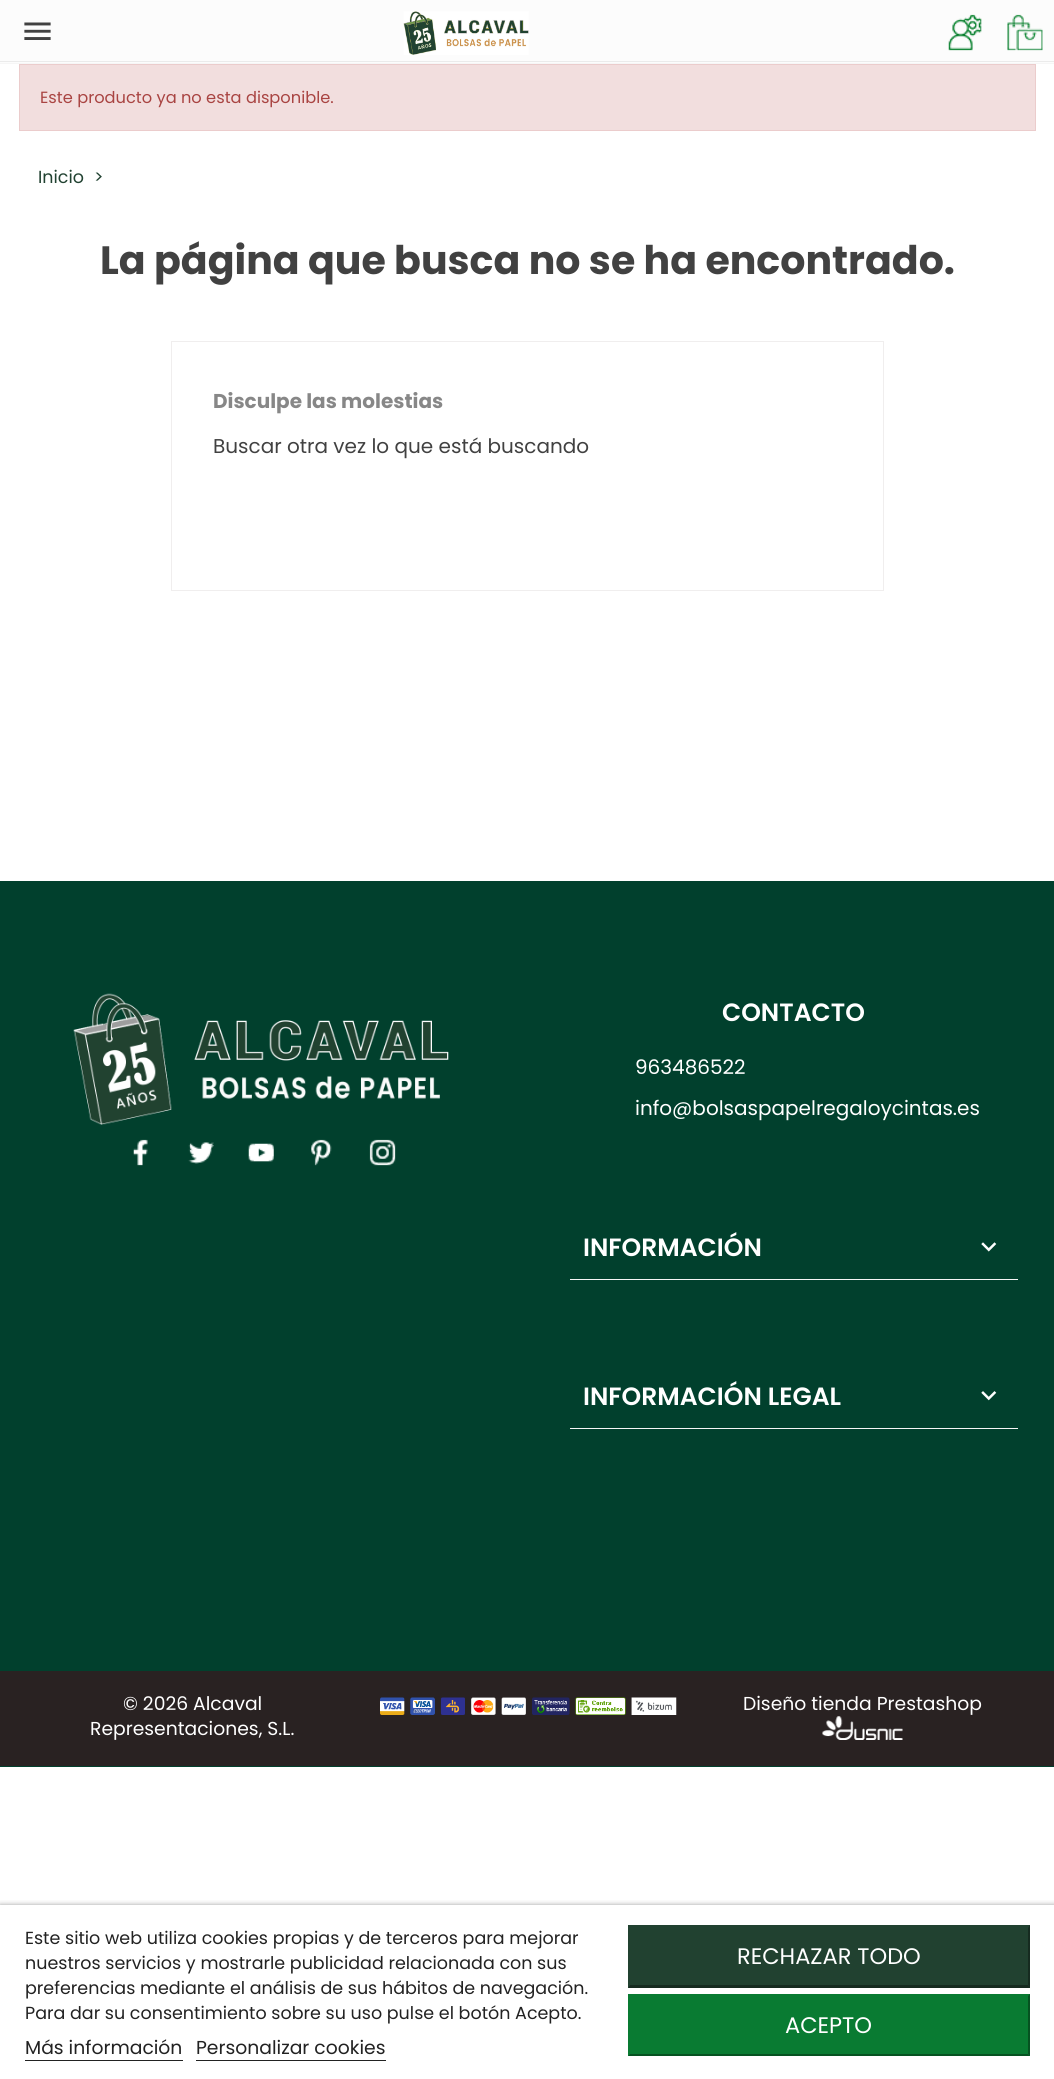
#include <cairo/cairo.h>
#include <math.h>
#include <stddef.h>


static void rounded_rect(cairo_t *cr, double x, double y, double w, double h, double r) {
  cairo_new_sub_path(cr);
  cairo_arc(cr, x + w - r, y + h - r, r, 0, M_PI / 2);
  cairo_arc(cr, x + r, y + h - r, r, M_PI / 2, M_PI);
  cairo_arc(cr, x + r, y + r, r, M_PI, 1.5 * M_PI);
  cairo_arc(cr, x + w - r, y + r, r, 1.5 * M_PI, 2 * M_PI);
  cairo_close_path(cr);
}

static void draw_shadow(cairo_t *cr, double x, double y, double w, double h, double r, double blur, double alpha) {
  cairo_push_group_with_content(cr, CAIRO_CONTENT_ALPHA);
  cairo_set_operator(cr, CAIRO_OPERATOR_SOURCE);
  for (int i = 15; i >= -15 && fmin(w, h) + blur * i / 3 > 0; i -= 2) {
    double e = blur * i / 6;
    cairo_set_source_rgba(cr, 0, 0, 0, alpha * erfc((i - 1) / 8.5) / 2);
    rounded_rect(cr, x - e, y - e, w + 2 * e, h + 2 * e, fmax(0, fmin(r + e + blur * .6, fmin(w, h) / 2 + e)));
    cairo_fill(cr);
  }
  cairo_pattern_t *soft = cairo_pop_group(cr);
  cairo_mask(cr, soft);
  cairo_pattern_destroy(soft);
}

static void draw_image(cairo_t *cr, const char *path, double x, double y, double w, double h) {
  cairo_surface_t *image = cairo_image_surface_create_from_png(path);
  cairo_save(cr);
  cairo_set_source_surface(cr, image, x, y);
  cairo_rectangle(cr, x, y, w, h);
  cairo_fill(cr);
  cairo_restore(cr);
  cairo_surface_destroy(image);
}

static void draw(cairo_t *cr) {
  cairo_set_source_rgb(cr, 1, 1, 1);
  cairo_paint(cr);
  cairo_set_source_rgb(cr, 252 / 255.0, 252 / 255.0, 252 / 255.0);
  cairo_rectangle(cr, 0, 0, 1054, 63);
  cairo_fill(cr);
  cairo_set_source_rgb(cr, 246 / 255.0, 246 / 255.0, 246 / 255.0);
  cairo_rectangle(cr, 0, 63, 1054, 1);
  cairo_fill(cr);
  cairo_set_source_rgb(cr, 235 / 255.0, 235 / 255.0, 235 / 255.0);
  cairo_rectangle(cr, 0, 61, 1054, 1);
  cairo_fill(cr);
  draw_image(cr, "images/1.png", 24, 22, 27, 18);
  draw_image(cr, "images/2.png", 403, 11, 126, 44);
  draw_image(cr, "images/3.png", 948, 14, 34, 37);
  draw_image(cr, "images/4.png", 1007, 14, 36, 37);
  cairo_set_source_rgb(cr, 242 / 255.0, 222 / 255.0, 222 / 255.0);
  cairo_rectangle(cr, 19.5, 64.5, 1016, 66);
  cairo_fill_preserve(cr);
  cairo_set_source_rgb(cr, 235 / 255.0, 204 / 255.0, 204 / 255.0);
  cairo_set_line_width(cr, 1);
  cairo_stroke(cr);
  cairo_rectangle(cr, 171.5, 341.5, 712, 249);
  cairo_set_source_rgb(cr, 240 / 255.0, 238 / 255.0, 238 / 255.0);
  cairo_stroke(cr);
  cairo_set_source_rgb(cr, 1 / 255.0, 64 / 255.0, 45 / 255.0);
  cairo_rectangle(cr, 0, 881, 1054, 886);
  cairo_fill(cr);
  draw_image(cr, "images/5.png", 73, 993, 376, 132);
  draw_image(cr, "images/6.png", 133, 1139, 15, 27);
  draw_image(cr, "images/7.png", 188, 1142, 26, 22);
  draw_image(cr, "images/8.png", 248, 1143, 26, 19);
  draw_image(cr, "images/9.png", 311, 1139, 21, 27);
  draw_image(cr, "images/10.png", 369, 1139, 27, 27);
  cairo_set_source_rgb(cr, 246 / 255.0, 246 / 255.0, 246 / 255.0);
  cairo_rectangle(cr, 570, 1279, 448, 1);
  cairo_fill(cr);
  draw_image(cr, "images/11.png", 981, 1242, 16, 10);
  cairo_rectangle(cr, 570, 1428, 448, 1);
  cairo_fill(cr);
  draw_image(cr, "images/12.png", 981, 1391, 16, 10);
  cairo_save(cr);
  cairo_rectangle(cr, 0, 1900, 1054, 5);
  cairo_clip(cr);
  cairo_set_source_rgb(cr, 119 / 255.0, 119 / 255.0, 119 / 255.0);
  draw_shadow(cr, 0, 1906, 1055, 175, 0, 3, 1);
  cairo_restore(cr);
  cairo_set_source_rgb(cr, 34 / 255.0, 34 / 255.0, 34 / 255.0);
  cairo_rectangle(cr, 25, 2060, 158, 1);
  cairo_fill(cr);
  cairo_rectangle(cr, 196, 2060, 190, 1);
  cairo_fill(cr);
  cairo_set_source_rgb(cr, 33 / 255.0, 65 / 255.0, 48 / 255.0);
  cairo_rectangle(cr, 628, 1925, 402, 63);
  cairo_fill(cr);
  cairo_set_source_rgb(cr, 22 / 255.0, 43 / 255.0, 32 / 255.0);
  cairo_new_path(cr);
  cairo_move_to(cr, 1030, 1925);
  cairo_line_to(cr, 1030, 1988);
  cairo_line_to(cr, 1028, 1985);
  cairo_line_to(cr, 1028, 1928);
  cairo_close_path(cr);
  cairo_fill(cr);
  cairo_new_path(cr);
  cairo_move_to(cr, 1030, 1988);
  cairo_line_to(cr, 628, 1988);
  cairo_line_to(cr, 630, 1985);
  cairo_line_to(cr, 1028, 1985);
  cairo_close_path(cr);
  cairo_fill(cr);
  cairo_set_source_rgb(cr, 33 / 255.0, 65 / 255.0, 48 / 255.0);
  cairo_new_path(cr);
  cairo_move_to(cr, 628, 1988);
  cairo_line_to(cr, 628, 1925);
  cairo_line_to(cr, 630, 1928);
  cairo_line_to(cr, 630, 1985);
  cairo_close_path(cr);
  cairo_fill(cr);
  cairo_set_source_rgb(cr, 9 / 255.0, 123 / 255.0, 50 / 255.0);
  cairo_rectangle(cr, 628, 1994, 402, 62);
  cairo_fill(cr);
  cairo_set_source_rgb(cr, 6 / 255.0, 82 / 255.0, 33 / 255.0);
  cairo_new_path(cr);
  cairo_move_to(cr, 1030, 1994);
  cairo_line_to(cr, 1030, 2056);
  cairo_line_to(cr, 1028, 2054);
  cairo_line_to(cr, 1028, 1996);
  cairo_close_path(cr);
  cairo_fill(cr);
  cairo_new_path(cr);
  cairo_move_to(cr, 1030, 2056);
  cairo_line_to(cr, 628, 2056);
  cairo_line_to(cr, 630, 2054);
  cairo_line_to(cr, 1028, 2054);
  cairo_close_path(cr);
  cairo_fill(cr);
  cairo_set_source_rgb(cr, 9 / 255.0, 123 / 255.0, 50 / 255.0);
  cairo_new_path(cr);
  cairo_move_to(cr, 628, 2056);
  cairo_line_to(cr, 628, 1994);
  cairo_line_to(cr, 630, 1996);
  cairo_line_to(cr, 630, 2054);
  cairo_close_path(cr);
  cairo_fill(cr);
  cairo_set_source_rgb(cr, 41 / 255.0, 34 / 255.0, 34 / 255.0);
  cairo_rectangle(cr, 0, 1671, 1054, 95);
  cairo_fill(cr);
  draw_image(cr, "images/13.png", 380, 1697, 297, 18);
  draw_image(cr, "images/14.png", 822, 1716, 81, 24);
  cairo_select_font_face(cr, "Poppins", CAIRO_FONT_SLANT_NORMAL, CAIRO_FONT_WEIGHT_NORMAL);
  cairo_set_font_size(cr, 16.25);
  cairo_set_source_rgb(cr, 169 / 255.0, 68 / 255.0, 66 / 255.0);
  cairo_move_to(cr, 40, 103);
  cairo_show_text(cr, "Este producto ya no esta disponible.");
  cairo_set_font_size(cr, 17.5);
  cairo_set_source_rgb(cr, 33 / 255.0, 66 / 255.0, 49 / 255.0);
  cairo_move_to(cr, 38, 183);
  cairo_show_text(cr, "Inicio");
  cairo_move_to(cr, 94, 183);
  cairo_show_text(cr, ">");
  cairo_select_font_face(cr, "Poppins", CAIRO_FONT_SLANT_NORMAL, CAIRO_FONT_WEIGHT_BOLD);
  cairo_set_font_size(cr, 39.5);
  cairo_set_source_rgb(cr, 65 / 255.0, 65 / 255.0, 65 / 255.0);
  cairo_move_to(cr, 100, 274);
  cairo_show_text(cr, "La página que busca no se ha encontrado.");
  cairo_set_font_size(cr, 20);
  cairo_set_source_rgb(cr, 135 / 255.0, 135 / 255.0, 135 / 255.0);
  cairo_move_to(cr, 213, 408);
  cairo_show_text(cr, "Disculpe las molestias");
  cairo_select_font_face(cr, "Poppins", CAIRO_FONT_SLANT_NORMAL, CAIRO_FONT_WEIGHT_NORMAL);
  cairo_set_source_rgb(cr, 65 / 255.0, 65 / 255.0, 65 / 255.0);
  cairo_move_to(cr, 213, 453);
  cairo_show_text(cr, "Buscar otra vez lo que está buscando");
  cairo_select_font_face(cr, "Poppins SemiBold", CAIRO_FONT_SLANT_NORMAL, CAIRO_FONT_WEIGHT_NORMAL);
  cairo_set_font_size(cr, 25);
  cairo_set_source_rgb(cr, 1, 1, 1);
  cairo_move_to(cr, 722, 1021);
  cairo_show_text(cr, "CONTACTO");
  cairo_select_font_face(cr, "Poppins", CAIRO_FONT_SLANT_NORMAL, CAIRO_FONT_WEIGHT_NORMAL);
  cairo_set_font_size(cr, 20);
  cairo_move_to(cr, 635, 1074);
  cairo_show_text(cr, "963486522");
  cairo_move_to(cr, 635, 1115);
  cairo_show_text(cr, "info@bolsaspapelregaloycintas.es");
  cairo_select_font_face(cr, "Poppins SemiBold", CAIRO_FONT_SLANT_NORMAL, CAIRO_FONT_WEIGHT_NORMAL);
  cairo_set_font_size(cr, 25);
  cairo_move_to(cr, 583, 1256);
  cairo_show_text(cr, "INFORMACIÓN");
  cairo_move_to(cr, 583, 1405);
  cairo_show_text(cr, "INFORMACIÓN LEGAL");
  cairo_select_font_face(cr, "Poppins", CAIRO_FONT_SLANT_NORMAL, CAIRO_FONT_WEIGHT_NORMAL);
  cairo_set_font_size(cr, 17.5);
  cairo_set_source_rgb(cr, 34 / 255.0, 34 / 255.0, 34 / 255.0);
  cairo_move_to(cr, 25, 1944);
  cairo_show_text(cr, "Este sitio web utiliza cookies propias y de terceros para mejorar");
  cairo_move_to(cr, 25, 1969);
  cairo_show_text(cr, "nuestros servicios y mostrarle publicidad relacionada con sus");
  cairo_move_to(cr, 25, 1994);
  cairo_show_text(cr, "preferencias mediante el análisis de sus hábitos de navegación.");
  cairo_move_to(cr, 25, 2019);
  cairo_show_text(cr, "Para dar su consentimiento sobre su uso pulse el botón Acepto.");
  cairo_set_font_size(cr, 18.75);
  cairo_move_to(cr, 25, 2054);
  cairo_show_text(cr, "Más información");
  cairo_move_to(cr, 196, 2054);
  cairo_show_text(cr, "Personalizar cookies");
  cairo_set_font_size(cr, 22.5);
  cairo_set_source_rgb(cr, 1, 1, 1);
  cairo_move_to(cr, 737, 1964);
  cairo_show_text(cr, "RECHAZAR TODO");
  cairo_move_to(cr, 785, 2033);
  cairo_show_text(cr, "ACEPTO");
  cairo_set_font_size(cr, 18.75);
  cairo_move_to(cr, 123, 1710);
  cairo_show_text(cr, "© 2026 Alcaval");
  cairo_move_to(cr, 90, 1735);
  cairo_show_text(cr, "Representaciones, S.L.");
  cairo_move_to(cr, 743, 1710);
  cairo_show_text(cr, "Diseño tienda Prestashop");
}

int main(void) {
  cairo_surface_t *surface = cairo_image_surface_create(CAIRO_FORMAT_RGB24, 1054, 2079);
  cairo_t *cr = cairo_create(surface);
  cairo_font_options_t *options = cairo_font_options_create();
  cairo_font_options_set_hint_metrics(options, CAIRO_HINT_METRICS_OFF);
  cairo_font_options_set_hint_style(options, CAIRO_HINT_STYLE_NONE);
  cairo_set_font_options(cr, options);
  cairo_set_miter_limit(cr, 4);
  draw(cr);
  cairo_surface_write_to_png(surface, "out.png");
  cairo_font_options_destroy(options);
  cairo_destroy(cr);
  cairo_surface_destroy(surface);
  return 0;
}
